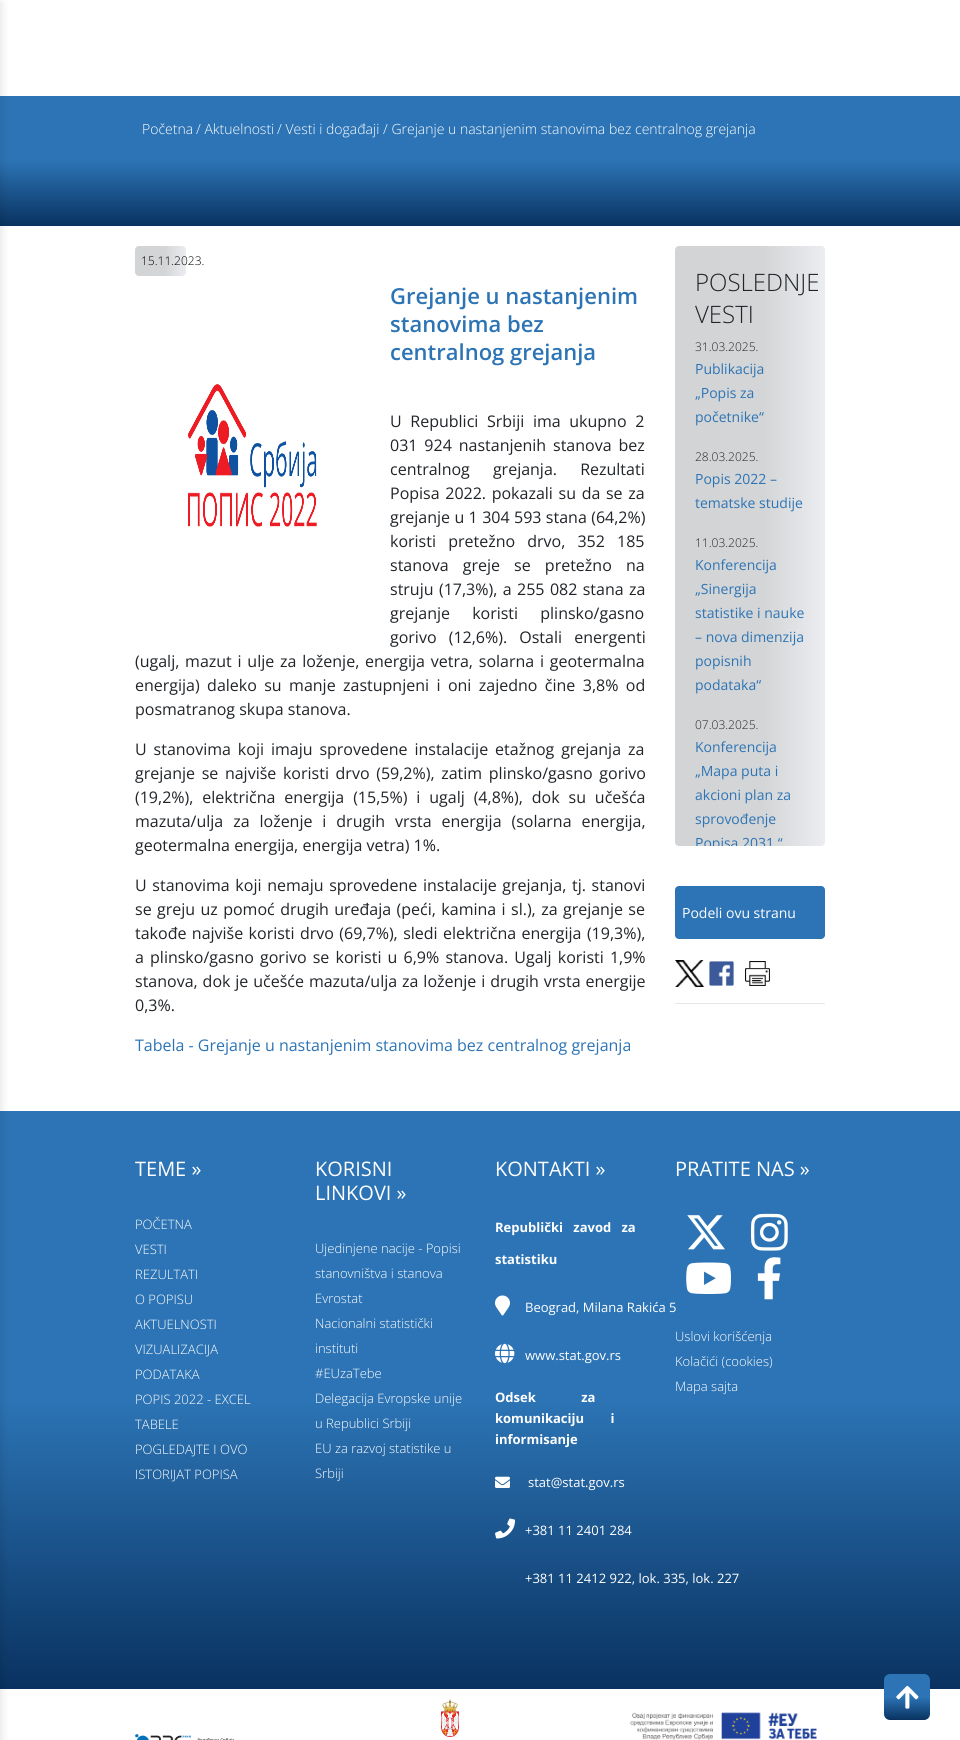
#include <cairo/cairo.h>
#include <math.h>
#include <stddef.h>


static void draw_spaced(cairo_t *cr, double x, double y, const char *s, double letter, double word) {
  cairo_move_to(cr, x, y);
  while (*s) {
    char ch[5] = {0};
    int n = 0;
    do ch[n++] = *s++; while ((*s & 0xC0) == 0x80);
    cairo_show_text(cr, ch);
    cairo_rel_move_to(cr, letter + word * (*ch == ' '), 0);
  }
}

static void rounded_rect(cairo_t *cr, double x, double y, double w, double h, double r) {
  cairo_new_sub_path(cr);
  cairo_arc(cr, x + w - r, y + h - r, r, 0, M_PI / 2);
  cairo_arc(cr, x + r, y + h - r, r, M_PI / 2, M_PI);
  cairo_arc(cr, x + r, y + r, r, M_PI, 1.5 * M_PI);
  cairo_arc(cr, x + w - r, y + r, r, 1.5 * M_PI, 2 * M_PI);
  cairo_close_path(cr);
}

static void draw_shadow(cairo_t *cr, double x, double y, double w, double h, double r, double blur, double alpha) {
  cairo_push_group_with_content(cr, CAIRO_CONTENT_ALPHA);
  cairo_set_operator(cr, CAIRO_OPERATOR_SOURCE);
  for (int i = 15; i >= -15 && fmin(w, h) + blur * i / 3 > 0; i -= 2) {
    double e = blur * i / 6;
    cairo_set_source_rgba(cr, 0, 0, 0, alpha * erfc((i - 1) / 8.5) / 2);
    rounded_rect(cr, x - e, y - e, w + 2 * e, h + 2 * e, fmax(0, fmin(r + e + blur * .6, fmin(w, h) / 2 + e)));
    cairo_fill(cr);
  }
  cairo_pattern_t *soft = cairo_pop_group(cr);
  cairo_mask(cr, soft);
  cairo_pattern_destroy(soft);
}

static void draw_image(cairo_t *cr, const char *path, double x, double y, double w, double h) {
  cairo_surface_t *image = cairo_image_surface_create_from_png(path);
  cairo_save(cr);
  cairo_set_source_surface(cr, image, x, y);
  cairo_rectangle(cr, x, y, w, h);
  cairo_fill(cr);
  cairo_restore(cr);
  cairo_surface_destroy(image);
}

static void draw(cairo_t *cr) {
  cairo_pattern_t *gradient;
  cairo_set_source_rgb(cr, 1, 1, 1);
  cairo_paint(cr);
  gradient = cairo_pattern_create_linear(480, 96, 480, 226);
  cairo_pattern_add_color_stop_rgba(gradient, 0.5, 44 / 255.0, 116 / 255.0, 181 / 255.0, 1);
  cairo_pattern_add_color_stop_rgba(gradient, 1, 9 / 255.0, 50 / 255.0, 96 / 255.0, 1);
  cairo_set_source(cr, gradient);
  cairo_pattern_destroy(gradient);
  cairo_rectangle(cr, 0, 96, 960, 130);
  cairo_fill(cr);
  gradient = cairo_pattern_create_linear(480, 1111, 480, 1689);
  cairo_pattern_add_color_stop_rgba(gradient, 0.5, 44 / 255.0, 116 / 255.0, 181 / 255.0, 1);
  cairo_pattern_add_color_stop_rgba(gradient, 1, 9 / 255.0, 50 / 255.0, 96 / 255.0, 1);
  cairo_set_source(cr, gradient);
  cairo_pattern_destroy(gradient);
  cairo_rectangle(cr, 0, 1111, 960, 578);
  cairo_fill(cr);
  cairo_set_source_rgb(cr, 0, 0, 0);
  draw_shadow(cr, -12, 2, 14, 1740, 0, 4, 0.1);
  gradient = cairo_pattern_create_linear(135, 261, 186, 261);
  cairo_pattern_add_color_stop_rgba(gradient, 0, 211 / 255.0, 212 / 255.0, 213 / 255.0, 1);
  cairo_pattern_add_color_stop_rgba(gradient, 0.59, 212 / 255.0, 213 / 255.0, 214 / 255.0, 1);
  cairo_pattern_add_color_stop_rgba(gradient, 1, 235 / 255.0, 237 / 255.0, 241 / 255.0, 1);
  cairo_pattern_add_color_stop_rgba(gradient, 1, 1, 1, 1, 1);
  cairo_pattern_add_color_stop_rgba(gradient, 1, 6 / 255.0, 55 / 255.0, 77 / 255.0, 1);
  cairo_set_source(cr, gradient);
  cairo_pattern_destroy(gradient);
  rounded_rect(cr, 135, 246, 51, 30, 4);
  cairo_fill(cr);
  draw_image(cr, "images/1.png", 188, 384, 129, 143);
  gradient = cairo_pattern_create_linear(675, 546, 825, 546);
  cairo_pattern_add_color_stop_rgba(gradient, 0, 211 / 255.0, 212 / 255.0, 213 / 255.0, 1);
  cairo_pattern_add_color_stop_rgba(gradient, 0.59, 212 / 255.0, 213 / 255.0, 214 / 255.0, 1);
  cairo_pattern_add_color_stop_rgba(gradient, 1, 235 / 255.0, 237 / 255.0, 241 / 255.0, 1);
  cairo_pattern_add_color_stop_rgba(gradient, 1, 1, 1, 1, 1);
  cairo_pattern_add_color_stop_rgba(gradient, 1, 6 / 255.0, 55 / 255.0, 77 / 255.0, 1);
  cairo_set_source(cr, gradient);
  cairo_pattern_destroy(gradient);
  rounded_rect(cr, 675, 246, 150, 600, 4);
  cairo_fill(cr);
  cairo_set_source_rgb(cr, 44 / 255.0, 116 / 255.0, 181 / 255.0);
  rounded_rect(cr, 675, 886, 150, 53, 4);
  cairo_fill(cr);
  draw_image(cr, "images/2.png", 675, 960, 30, 27);
  draw_image(cr, "images/3.png", 709, 961, 25, 25);
  draw_image(cr, "images/4.png", 745, 961, 25, 25);
  cairo_set_source_rgb(cr, 230 / 255.0, 230 / 255.0, 230 / 255.0);
  cairo_rectangle(cr, 675, 1003, 150, 1);
  cairo_fill(cr);
  draw_image(cr, "images/5.png", 495, 1295, 15, 21);
  draw_image(cr, "images/6.png", 495, 1343, 20, 21);
  draw_image(cr, "images/7.png", 495, 1476, 15, 12);
  draw_image(cr, "images/8.png", 495, 1518, 20, 21);
  draw_image(cr, "images/9.png", 687, 1215, 38, 35);
  draw_image(cr, "images/10.png", 751, 1213, 37, 38);
  draw_image(cr, "images/11.png", 686, 1262, 45, 32);
  draw_image(cr, "images/12.png", 757, 1257, 24, 43);
  draw_image(cr, "images/13.png", 135, 1734, 99, 6);
  draw_image(cr, "images/14.png", 441, 1699, 18, 38);
  draw_image(cr, "images/15.png", 630, 1712, 187, 28);
  gradient = cairo_pattern_create_linear(907, 1674, 907, 1720);
  cairo_pattern_add_color_stop_rgba(gradient, 0.5, 44 / 255.0, 116 / 255.0, 181 / 255.0, 1);
  cairo_pattern_add_color_stop_rgba(gradient, 1, 9 / 255.0, 50 / 255.0, 96 / 255.0, 1);
  cairo_set_source(cr, gradient);
  cairo_pattern_destroy(gradient);
  rounded_rect(cr, 884, 1674, 46, 46, 6);
  cairo_fill(cr);
  draw_image(cr, "images/16.png", 896, 1685, 23, 24);
  cairo_select_font_face(cr, "Open Sans Light", CAIRO_FONT_SLANT_NORMAL, CAIRO_FONT_WEIGHT_NORMAL);
  cairo_set_font_size(cr, 14);
  cairo_set_source_rgb(cr, 1, 1, 1);
  cairo_move_to(cr, 142, 134);
  cairo_show_text(cr, "Početna");
  cairo_move_to(cr, 196, 134);
  cairo_show_text(cr, "/ Aktuelnosti");
  cairo_move_to(cr, 277, 134);
  cairo_show_text(cr, "/ Vesti i događaji");
  cairo_move_to(cr, 383, 134);
  cairo_show_text(cr, "/ Grejanje u nastanjenim stanovima bez centralnog grejanja");
  cairo_set_font_size(cr, 12);
  cairo_set_source_rgb(cr, 0, 0, 0);
  cairo_move_to(cr, 141, 265);
  cairo_show_text(cr, "15.11.2023.");
  cairo_select_font_face(cr, "Open Sans SemiBold", CAIRO_FONT_SLANT_NORMAL, CAIRO_FONT_WEIGHT_NORMAL);
  cairo_set_font_size(cr, 22);
  cairo_set_source_rgb(cr, 44 / 255.0, 116 / 255.0, 181 / 255.0);
  cairo_move_to(cr, 390, 304);
  cairo_show_text(cr, "Grejanje u nastanjenim");
  cairo_move_to(cr, 390, 332);
  cairo_show_text(cr, "stanovima bez");
  cairo_move_to(cr, 390, 360);
  cairo_show_text(cr, "centralnog grejanja");
  cairo_select_font_face(cr, "Open Sans", CAIRO_FONT_SLANT_NORMAL, CAIRO_FONT_WEIGHT_NORMAL);
  cairo_set_font_size(cr, 16);
  cairo_set_source_rgb(cr, 33 / 255.0, 37 / 255.0, 41 / 255.0);
  draw_spaced(cr, 390, 427, "U Republici Srbiji ima ukupno 2", 0, 4.5);
  draw_spaced(cr, 390, 451, "031 924 nastanjenih stanova bez", 0, 2.75);
  draw_spaced(cr, 390, 475, "centralnog grejanja. Rezultati", 0, 19);
  draw_spaced(cr, 390, 499, "Popisa 2022. pokazali su da se za", 0, 1.5);
  draw_spaced(cr, 390, 523, "grejanje u 1 304 593 stana (64,2%)", 0, 0.25);
  draw_spaced(cr, 390, 547, "koristi pretežno drvo, 352 185", 0, 8);
  draw_spaced(cr, 390, 571, "stanova greje se pretežno na", 0, 10);
  draw_spaced(cr, 390, 595, "struju (17,3%), a 255 082 stana za", 0, 1.25);
  draw_spaced(cr, 390, 619, "grejanje koristi plinsko/gasno", 0, 18);
  draw_spaced(cr, 390, 643, "gorivo (12,6%). Ostali energenti", 0, 8);
  draw_spaced(cr, 135, 667, "(ugalj, mazut i ulje za loženje, energija vetra, solarna i geotermalna", 0, 1.6);
  draw_spaced(cr, 135, 691, "energija) daleko su manje zastupnjeni i oni zajedno čine 3,8% od", 0, 3.25);
  cairo_move_to(cr, 135, 715);
  cairo_show_text(cr, "posmatranog skupa stanova.");
  draw_spaced(cr, 135, 755, "U stanovima koji imaju sprovedene instalacije etažnog grejanja za", 0, 2.75);
  draw_spaced(cr, 135, 779, "grejanje se najviše koristi drvo (59,2%), zatim plinsko/gasno gorivo", 0, 2.5);
  draw_spaced(cr, 135, 803, "(19,2%), električna energija (15,5%) i ugalj (4,8%), dok su učešća", 0, 4.75);
  draw_spaced(cr, 135, 827, "mazuta/ulja za loženje i drugih vrsta energija (solarna energija,", 0, 5.75);
  cairo_move_to(cr, 135, 851);
  cairo_show_text(cr, "geotermalna energija, energija vetra) 1%.");
  draw_spaced(cr, 135, 891, "U stanovima koji nemaju sprovedene instalacije grejanja, tj. stanovi", 0, 1.5);
  draw_spaced(cr, 135, 915, "se greju uz pomoć drugih uređaja (peći, kamina i sl.), za grejanje se", 0, 1.25);
  draw_spaced(cr, 135, 939, "takođe najviše koristi drvo (69,7%), sledi električna energija (19,3%),", 0, 1.25);
  draw_spaced(cr, 135, 963, "a plinsko/gasno gorivo se koristi u 6,9% stanova. Ugalj koristi 1,9%", 0, 2);
  draw_spaced(cr, 135, 987, "stanova, dok je učešće mazuta/ulja za loženje i drugih vrsta energije", 0, 0.75);
  cairo_move_to(cr, 135, 1011);
  cairo_show_text(cr, "0,3%.");
  cairo_set_source_rgb(cr, 44 / 255.0, 116 / 255.0, 181 / 255.0);
  cairo_move_to(cr, 135, 1051);
  cairo_show_text(cr, "Tabela - Grejanje u nastanjenim stanovima bez centralnog grejanja");
  cairo_select_font_face(cr, "Open Sans Light", CAIRO_FONT_SLANT_NORMAL, CAIRO_FONT_WEIGHT_NORMAL);
  cairo_set_font_size(cr, 24);
  cairo_set_source_rgb(cr, 33 / 255.0, 37 / 255.0, 41 / 255.0);
  cairo_move_to(cr, 695, 291);
  cairo_show_text(cr, "POSLEDNJE");
  cairo_move_to(cr, 695, 323);
  cairo_show_text(cr, "VESTI");
  cairo_set_font_size(cr, 12);
  cairo_move_to(cr, 695, 351);
  cairo_show_text(cr, "31.03.2025.");
  cairo_select_font_face(cr, "Open Sans", CAIRO_FONT_SLANT_NORMAL, CAIRO_FONT_WEIGHT_NORMAL);
  cairo_set_font_size(cr, 14);
  cairo_set_source_rgb(cr, 44 / 255.0, 116 / 255.0, 181 / 255.0);
  cairo_move_to(cr, 695, 374);
  cairo_show_text(cr, "Publikacija");
  cairo_move_to(cr, 695, 398);
  cairo_show_text(cr, "„Popis za");
  cairo_move_to(cr, 695, 422);
  cairo_show_text(cr, "početnike“");
  cairo_select_font_face(cr, "Open Sans Light", CAIRO_FONT_SLANT_NORMAL, CAIRO_FONT_WEIGHT_NORMAL);
  cairo_set_font_size(cr, 12);
  cairo_set_source_rgb(cr, 33 / 255.0, 37 / 255.0, 41 / 255.0);
  cairo_move_to(cr, 695, 461);
  cairo_show_text(cr, "28.03.2025.");
  cairo_select_font_face(cr, "Open Sans", CAIRO_FONT_SLANT_NORMAL, CAIRO_FONT_WEIGHT_NORMAL);
  cairo_set_font_size(cr, 14);
  cairo_set_source_rgb(cr, 44 / 255.0, 116 / 255.0, 181 / 255.0);
  cairo_move_to(cr, 695, 484);
  cairo_show_text(cr, "Popis 2022 –");
  cairo_move_to(cr, 695, 508);
  cairo_show_text(cr, "tematske studije");
  cairo_select_font_face(cr, "Open Sans Light", CAIRO_FONT_SLANT_NORMAL, CAIRO_FONT_WEIGHT_NORMAL);
  cairo_set_font_size(cr, 12);
  cairo_set_source_rgb(cr, 33 / 255.0, 37 / 255.0, 41 / 255.0);
  cairo_move_to(cr, 695, 547);
  cairo_show_text(cr, "11.03.2025.");
  cairo_select_font_face(cr, "Open Sans", CAIRO_FONT_SLANT_NORMAL, CAIRO_FONT_WEIGHT_NORMAL);
  cairo_set_font_size(cr, 14);
  cairo_set_source_rgb(cr, 44 / 255.0, 116 / 255.0, 181 / 255.0);
  cairo_move_to(cr, 695, 570);
  cairo_show_text(cr, "Konferencija");
  cairo_move_to(cr, 695, 594);
  cairo_show_text(cr, "„Sinergija");
  cairo_move_to(cr, 695, 618);
  cairo_show_text(cr, "statistike i nauke");
  cairo_move_to(cr, 695, 642);
  cairo_show_text(cr, "– nova dimenzija");
  cairo_move_to(cr, 695, 666);
  cairo_show_text(cr, "popisnih");
  cairo_move_to(cr, 695, 690);
  cairo_show_text(cr, "podataka“");
  cairo_select_font_face(cr, "Open Sans Light", CAIRO_FONT_SLANT_NORMAL, CAIRO_FONT_WEIGHT_NORMAL);
  cairo_set_font_size(cr, 12);
  cairo_set_source_rgb(cr, 33 / 255.0, 37 / 255.0, 41 / 255.0);
  cairo_move_to(cr, 695, 729);
  cairo_show_text(cr, "07.03.2025.");
  cairo_select_font_face(cr, "Open Sans", CAIRO_FONT_SLANT_NORMAL, CAIRO_FONT_WEIGHT_NORMAL);
  cairo_set_font_size(cr, 14);
  cairo_set_source_rgb(cr, 44 / 255.0, 116 / 255.0, 181 / 255.0);
  cairo_move_to(cr, 695, 752);
  cairo_show_text(cr, "Konferencija");
  cairo_move_to(cr, 695, 776);
  cairo_show_text(cr, "„Mapa puta i");
  cairo_move_to(cr, 695, 800);
  cairo_show_text(cr, "akcioni plan za");
  cairo_move_to(cr, 695, 824);
  cairo_show_text(cr, "sprovođenje");
  cairo_save(cr);
  rounded_rect(cr, 675, 246, 150, 600, 4);
  cairo_clip(cr);
  cairo_move_to(cr, 695, 848);
  cairo_show_text(cr, "Popisa 2031.“");
  cairo_restore(cr);
  cairo_set_source_rgb(cr, 1, 1, 1);
  cairo_move_to(cr, 682, 918);
  cairo_show_text(cr, "Podeli ovu stranu");
  cairo_set_font_size(cr, 20);
  cairo_move_to(cr, 135, 1176);
  cairo_show_text(cr, "TEME »");
  cairo_select_font_face(cr, "Open Sans Light", CAIRO_FONT_SLANT_NORMAL, CAIRO_FONT_WEIGHT_NORMAL);
  cairo_set_font_size(cr, 13);
  cairo_move_to(cr, 135, 1229);
  cairo_show_text(cr, "POČETNA");
  cairo_move_to(cr, 135, 1254);
  cairo_show_text(cr, "VESTI");
  cairo_move_to(cr, 135, 1279);
  cairo_show_text(cr, "REZULTATI");
  cairo_move_to(cr, 135, 1304);
  cairo_show_text(cr, "O POPISU");
  cairo_move_to(cr, 135, 1329);
  cairo_show_text(cr, "AKTUELNOSTI");
  cairo_move_to(cr, 135, 1354);
  cairo_show_text(cr, "VIZUALIZACIJA");
  cairo_move_to(cr, 135, 1379);
  cairo_show_text(cr, "PODATAKA");
  cairo_move_to(cr, 135, 1404);
  cairo_show_text(cr, "POPIS 2022 - EXCEL");
  cairo_move_to(cr, 135, 1429);
  cairo_show_text(cr, "TABELE");
  cairo_move_to(cr, 135, 1454);
  cairo_show_text(cr, "POGLEDAJTE I OVO");
  cairo_move_to(cr, 135, 1479);
  cairo_show_text(cr, "ISTORIJAT POPISA");
  cairo_select_font_face(cr, "Open Sans", CAIRO_FONT_SLANT_NORMAL, CAIRO_FONT_WEIGHT_NORMAL);
  cairo_set_font_size(cr, 20);
  cairo_move_to(cr, 315, 1176);
  cairo_show_text(cr, "KORISNI");
  cairo_move_to(cr, 315, 1200);
  cairo_show_text(cr, "LINKOVI »");
  cairo_select_font_face(cr, "Open Sans Light", CAIRO_FONT_SLANT_NORMAL, CAIRO_FONT_WEIGHT_NORMAL);
  cairo_set_font_size(cr, 13);
  cairo_move_to(cr, 315, 1253);
  cairo_show_text(cr, "Ujedinjene nacije - Popisi");
  cairo_move_to(cr, 315, 1278);
  cairo_show_text(cr, "stanovništva i stanova");
  cairo_move_to(cr, 315, 1303);
  cairo_show_text(cr, "Evrostat");
  cairo_move_to(cr, 315, 1328);
  cairo_show_text(cr, "Nacionalni statistički");
  cairo_move_to(cr, 315, 1353);
  cairo_show_text(cr, "instituti");
  cairo_move_to(cr, 315, 1378);
  cairo_show_text(cr, "#EUzaTebe");
  cairo_move_to(cr, 315, 1403);
  cairo_show_text(cr, "Delegacija Evropske unije");
  cairo_move_to(cr, 315, 1428);
  cairo_show_text(cr, "u Republici Srbiji");
  cairo_move_to(cr, 315, 1453);
  cairo_show_text(cr, "EU za razvoj statistike u");
  cairo_move_to(cr, 315, 1478);
  cairo_show_text(cr, "Srbiji");
  cairo_select_font_face(cr, "Open Sans", CAIRO_FONT_SLANT_NORMAL, CAIRO_FONT_WEIGHT_NORMAL);
  cairo_set_font_size(cr, 20);
  cairo_move_to(cr, 495, 1176);
  cairo_show_text(cr, "KONTAKTI »");
  cairo_select_font_face(cr, "Open Sans", CAIRO_FONT_SLANT_NORMAL, CAIRO_FONT_WEIGHT_BOLD);
  cairo_set_font_size(cr, 13);
  draw_spaced(cr, 495, 1232, "Republički zavod za", 0, 7);
  cairo_move_to(cr, 495, 1264);
  cairo_show_text(cr, "statistiku");
  cairo_select_font_face(cr, "Open Sans", CAIRO_FONT_SLANT_NORMAL, CAIRO_FONT_WEIGHT_NORMAL);
  cairo_move_to(cr, 525, 1312);
  cairo_show_text(cr, "Beograd, Milana Rakića 5");
  cairo_move_to(cr, 525, 1360);
  cairo_show_text(cr, "www.stat.gov.rs");
  cairo_select_font_face(cr, "Open Sans", CAIRO_FONT_SLANT_NORMAL, CAIRO_FONT_WEIGHT_BOLD);
  draw_spaced(cr, 495, 1402, "Odsek za", 0, 42);
  draw_spaced(cr, 495, 1423, "komunikaciju i", 0, 23);
  cairo_move_to(cr, 495, 1444);
  cairo_show_text(cr, "informisanje");
  cairo_select_font_face(cr, "Open Sans", CAIRO_FONT_SLANT_NORMAL, CAIRO_FONT_WEIGHT_NORMAL);
  cairo_move_to(cr, 528, 1487);
  cairo_show_text(cr, "stat@stat.gov.rs");
  cairo_move_to(cr, 525, 1535);
  cairo_show_text(cr, "+381 11 2401 284");
  cairo_move_to(cr, 525, 1583);
  cairo_show_text(cr, "+381 11 2412 922, lok. 335, lok. 227");
  cairo_set_font_size(cr, 20);
  cairo_move_to(cr, 675, 1176);
  cairo_show_text(cr, "PRATITE NAS »");
  cairo_select_font_face(cr, "Open Sans Light", CAIRO_FONT_SLANT_NORMAL, CAIRO_FONT_WEIGHT_NORMAL);
  cairo_set_font_size(cr, 13);
  cairo_move_to(cr, 675, 1341);
  cairo_show_text(cr, "Uslovi korišćenja");
  cairo_move_to(cr, 675, 1366);
  cairo_show_text(cr, "Kolačići (cookies)");
  cairo_move_to(cr, 675, 1391);
  cairo_show_text(cr, "Mapa sajta");
}

int main(void) {
  cairo_surface_t *surface = cairo_image_surface_create(CAIRO_FORMAT_RGB24, 960, 1740);
  cairo_t *cr = cairo_create(surface);
  cairo_font_options_t *options = cairo_font_options_create();
  cairo_font_options_set_hint_metrics(options, CAIRO_HINT_METRICS_OFF);
  cairo_font_options_set_hint_style(options, CAIRO_HINT_STYLE_NONE);
  cairo_set_font_options(cr, options);
  cairo_set_miter_limit(cr, 4);
  draw(cr);
  cairo_surface_write_to_png(surface, "out.png");
  cairo_font_options_destroy(options);
  cairo_destroy(cr);
  cairo_surface_destroy(surface);
  return 0;
}
